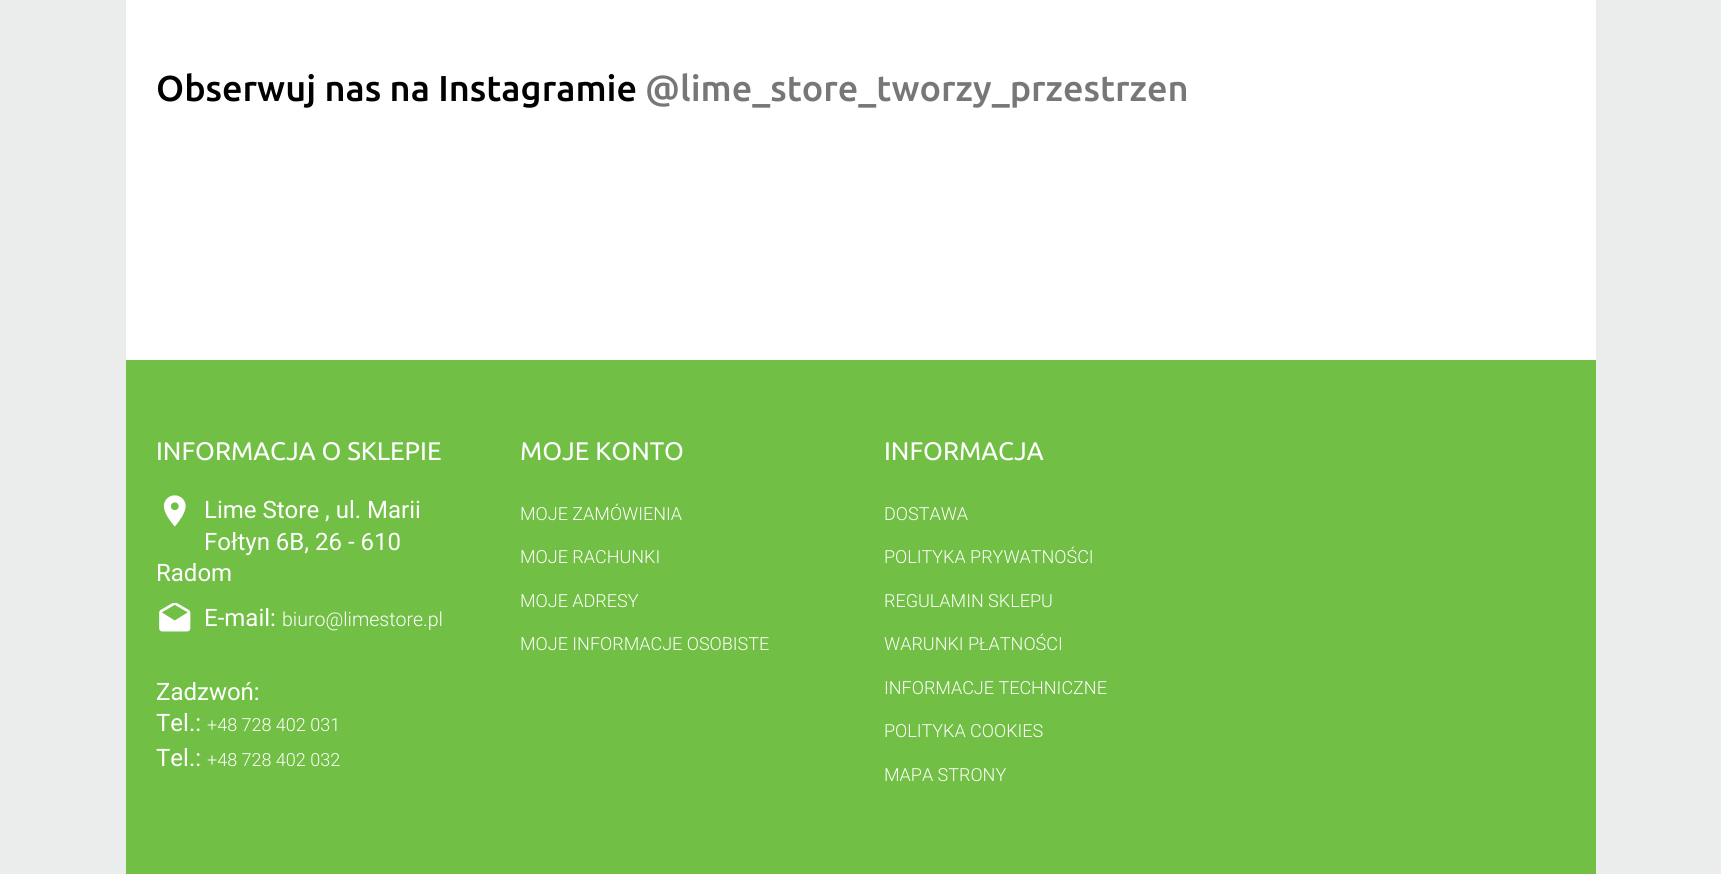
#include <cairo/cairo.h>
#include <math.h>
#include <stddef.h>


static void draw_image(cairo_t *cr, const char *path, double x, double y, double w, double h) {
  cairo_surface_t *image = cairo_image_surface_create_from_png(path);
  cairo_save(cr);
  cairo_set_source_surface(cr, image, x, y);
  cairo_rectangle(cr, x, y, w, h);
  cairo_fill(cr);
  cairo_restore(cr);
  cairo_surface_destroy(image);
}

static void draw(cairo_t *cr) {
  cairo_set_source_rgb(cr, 235 / 255.0, 236 / 255.0, 236 / 255.0);
  cairo_paint(cr);
  cairo_set_source_rgb(cr, 1, 1, 1);
  cairo_rectangle(cr, 126, 0, 1470, 360);
  cairo_fill(cr);
  cairo_set_source_rgb(cr, 113 / 255.0, 191 / 255.0, 68 / 255.0);
  cairo_rectangle(cr, 126, 360, 1470, 514);
  cairo_fill(cr);
  draw_image(cr, "images/1.png", 163, 495, 23, 32);
  draw_image(cr, "images/2.png", 159, 603, 32, 29);
  cairo_select_font_face(cr, "Ubuntu Medium", CAIRO_FONT_SLANT_NORMAL, CAIRO_FONT_WEIGHT_NORMAL);
  cairo_set_font_size(cr, 36);
  cairo_set_source_rgb(cr, 0, 0, 0);
  cairo_move_to(cr, 156, 101);
  cairo_show_text(cr, "Obserwuj nas na Instagramie");
  cairo_set_source_rgb(cr, 119 / 255.0, 119 / 255.0, 119 / 255.0);
  cairo_move_to(cr, 645, 101);
  cairo_show_text(cr, "@lime_store_tworzy_przestrzen");
  cairo_select_font_face(cr, "Ubuntu", CAIRO_FONT_SLANT_NORMAL, CAIRO_FONT_WEIGHT_NORMAL);
  cairo_set_font_size(cr, 25.5);
  cairo_set_source_rgb(cr, 1, 1, 1);
  cairo_move_to(cr, 156, 460);
  cairo_show_text(cr, "INFORMACJA O SKLEPIE");
  cairo_select_font_face(cr, "Roboto", CAIRO_FONT_SLANT_NORMAL, CAIRO_FONT_WEIGHT_NORMAL);
  cairo_set_font_size(cr, 24);
  cairo_move_to(cr, 204, 518);
  cairo_show_text(cr, "Lime Store , ul. Marii");
  cairo_move_to(cr, 204, 550);
  cairo_show_text(cr, "Fołtyn 6B, 26 - 610");
  cairo_move_to(cr, 156, 581);
  cairo_show_text(cr, "Radom");
  cairo_move_to(cr, 204, 626);
  cairo_show_text(cr, "E-mail:");
  cairo_select_font_face(cr, "Roboto Light", CAIRO_FONT_SLANT_NORMAL, CAIRO_FONT_WEIGHT_NORMAL);
  cairo_set_font_size(cr, 19.5);
  cairo_move_to(cr, 282, 626);
  cairo_show_text(cr, "biuro@limestore.pl");
  cairo_select_font_face(cr, "Roboto", CAIRO_FONT_SLANT_NORMAL, CAIRO_FONT_WEIGHT_NORMAL);
  cairo_set_font_size(cr, 24);
  cairo_move_to(cr, 156, 700);
  cairo_show_text(cr, "Zadzwoń:");
  cairo_move_to(cr, 156, 731);
  cairo_show_text(cr, "Tel.:");
  cairo_select_font_face(cr, "Roboto Light", CAIRO_FONT_SLANT_NORMAL, CAIRO_FONT_WEIGHT_NORMAL);
  cairo_set_font_size(cr, 18);
  cairo_move_to(cr, 207, 731);
  cairo_show_text(cr, "+48 728 402 031");
  cairo_select_font_face(cr, "Roboto", CAIRO_FONT_SLANT_NORMAL, CAIRO_FONT_WEIGHT_NORMAL);
  cairo_set_font_size(cr, 24);
  cairo_move_to(cr, 156, 766);
  cairo_show_text(cr, "Tel.:");
  cairo_select_font_face(cr, "Roboto Light", CAIRO_FONT_SLANT_NORMAL, CAIRO_FONT_WEIGHT_NORMAL);
  cairo_set_font_size(cr, 18);
  cairo_move_to(cr, 207, 766);
  cairo_show_text(cr, "+48 728 402 032");
  cairo_select_font_face(cr, "Ubuntu", CAIRO_FONT_SLANT_NORMAL, CAIRO_FONT_WEIGHT_NORMAL);
  cairo_set_font_size(cr, 25.5);
  cairo_move_to(cr, 520, 460);
  cairo_show_text(cr, "MOJE KONTO");
  cairo_select_font_face(cr, "Roboto Light", CAIRO_FONT_SLANT_NORMAL, CAIRO_FONT_WEIGHT_NORMAL);
  cairo_set_font_size(cr, 18);
  cairo_move_to(cr, 520, 520);
  cairo_show_text(cr, "MOJE ZAMÓWIENIA");
  cairo_move_to(cr, 520, 563);
  cairo_show_text(cr, "MOJE RACHUNKI");
  cairo_move_to(cr, 520, 607);
  cairo_show_text(cr, "MOJE ADRESY");
  cairo_move_to(cr, 520, 650);
  cairo_show_text(cr, "MOJE INFORMACJE OSOBISTE");
  cairo_select_font_face(cr, "Ubuntu", CAIRO_FONT_SLANT_NORMAL, CAIRO_FONT_WEIGHT_NORMAL);
  cairo_set_font_size(cr, 25.5);
  cairo_move_to(cr, 884, 460);
  cairo_show_text(cr, "INFORMACJA");
  cairo_select_font_face(cr, "Roboto Light", CAIRO_FONT_SLANT_NORMAL, CAIRO_FONT_WEIGHT_NORMAL);
  cairo_set_font_size(cr, 18);
  cairo_move_to(cr, 884, 520);
  cairo_show_text(cr, "DOSTAWA");
  cairo_move_to(cr, 884, 563);
  cairo_show_text(cr, "POLITYKA PRYWATNOŚCI");
  cairo_move_to(cr, 884, 607);
  cairo_show_text(cr, "REGULAMIN SKLEPU");
  cairo_move_to(cr, 884, 650);
  cairo_show_text(cr, "WARUNKI PŁATNOŚCI");
  cairo_move_to(cr, 884, 694);
  cairo_show_text(cr, "INFORMACJE TECHNICZNE");
  cairo_move_to(cr, 884, 737);
  cairo_show_text(cr, "POLITYKA COOKIES");
  cairo_move_to(cr, 884, 781);
  cairo_show_text(cr, "MAPA STRONY");
}

int main(void) {
  cairo_surface_t *surface = cairo_image_surface_create(CAIRO_FORMAT_RGB24, 1721, 874);
  cairo_t *cr = cairo_create(surface);
  cairo_font_options_t *options = cairo_font_options_create();
  cairo_font_options_set_hint_metrics(options, CAIRO_HINT_METRICS_OFF);
  cairo_font_options_set_hint_style(options, CAIRO_HINT_STYLE_NONE);
  cairo_set_font_options(cr, options);
  cairo_set_miter_limit(cr, 4);
  draw(cr);
  cairo_surface_write_to_png(surface, "out.png");
  cairo_font_options_destroy(options);
  cairo_destroy(cr);
  cairo_surface_destroy(surface);
  return 0;
}
